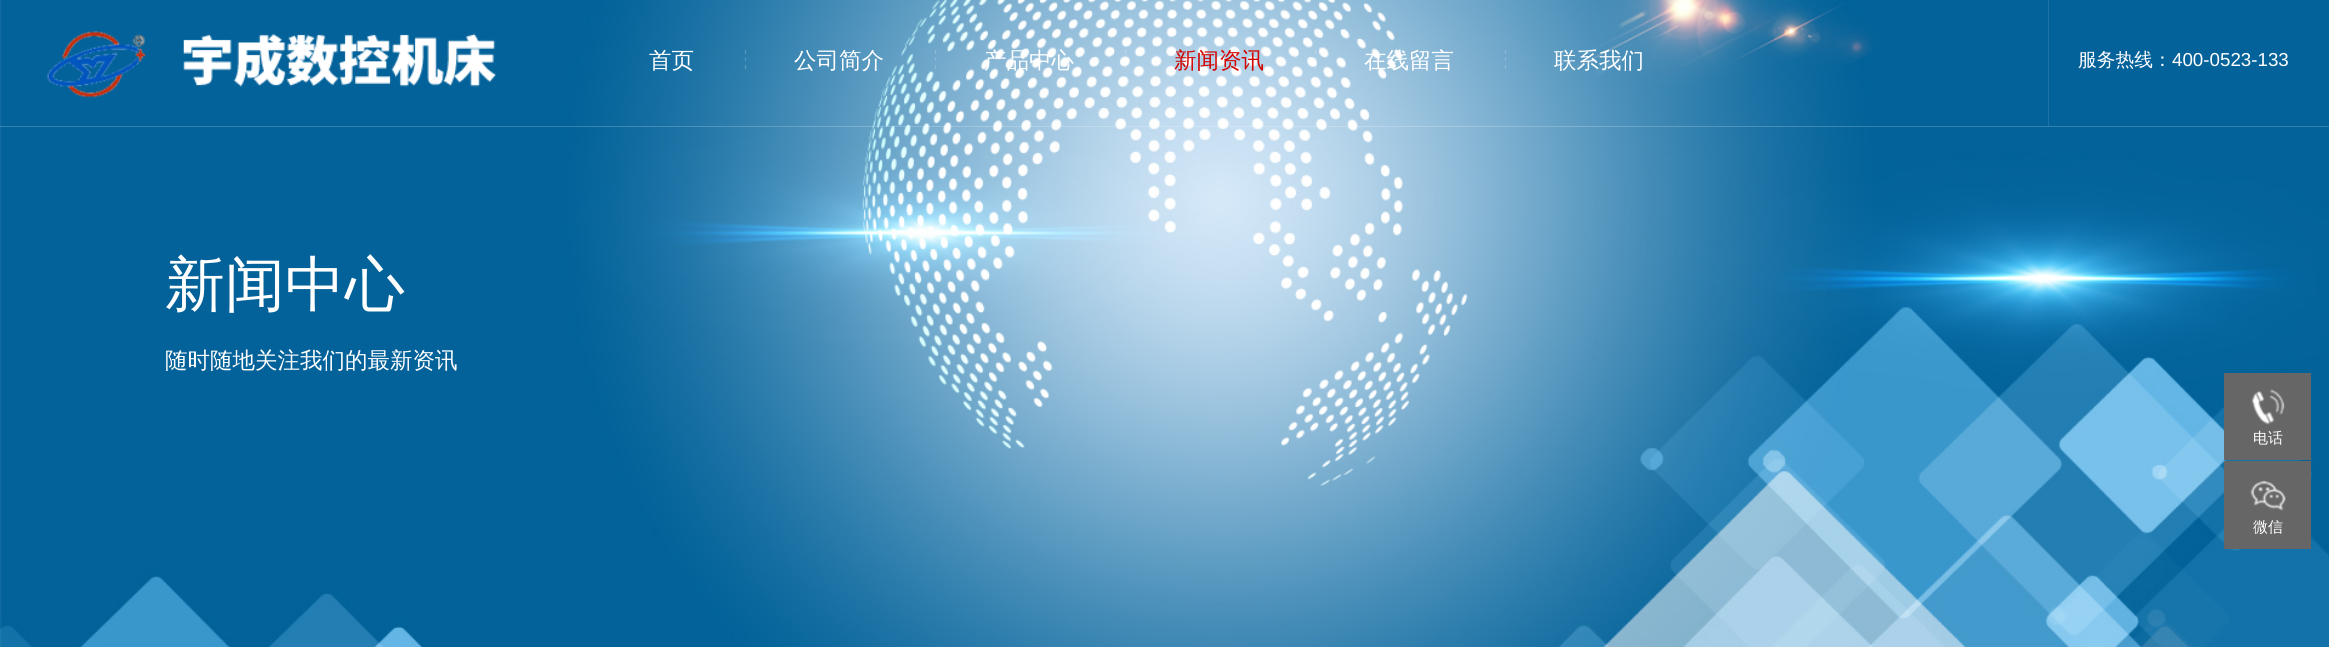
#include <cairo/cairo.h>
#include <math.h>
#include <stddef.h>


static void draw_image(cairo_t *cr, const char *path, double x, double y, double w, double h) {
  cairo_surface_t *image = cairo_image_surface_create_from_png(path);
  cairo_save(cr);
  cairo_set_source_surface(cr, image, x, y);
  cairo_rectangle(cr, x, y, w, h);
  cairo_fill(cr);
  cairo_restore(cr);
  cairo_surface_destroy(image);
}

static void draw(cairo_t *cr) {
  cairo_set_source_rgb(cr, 1, 1, 1);
  cairo_paint(cr);
  draw_image(cr, "images/2.png", 0, 0, 2329, 647);
  cairo_set_source_rgba(cr, 1, 1, 1, 0.2);
  cairo_rectangle(cr, 0, 126, 2329, 1);
  cairo_fill(cr);
  draw_image(cr, "images/1.png", 47, 31, 450, 67);
  cairo_new_path(cr);
  cairo_move_to(cr, 745.5, 50);
  cairo_line_to(cr, 745.5, 54);
  cairo_move_to(cr, 745.5, 57.5);
  cairo_line_to(cr, 745.5, 61);
  cairo_move_to(cr, 745.5, 65);
  cairo_line_to(cr, 745.5, 69);
  cairo_set_source_rgb(cr, 86 / 255.0, 151 / 255.0, 189 / 255.0);
  cairo_set_line_width(cr, 1.2);
  cairo_stroke(cr);
  cairo_new_path(cr);
  cairo_move_to(cr, 935.5, 50);
  cairo_line_to(cr, 935.5, 54);
  cairo_move_to(cr, 935.5, 57.5);
  cairo_line_to(cr, 935.5, 61);
  cairo_move_to(cr, 935.5, 65);
  cairo_line_to(cr, 935.5, 69);
  cairo_set_source_rgba(cr, 1, 1, 1, 0.2);
  cairo_stroke(cr);
  cairo_new_path(cr);
  cairo_move_to(cr, 1125.5, 50);
  cairo_line_to(cr, 1125.5, 54);
  cairo_move_to(cr, 1125.5, 57.5);
  cairo_line_to(cr, 1125.5, 61);
  cairo_move_to(cr, 1125.5, 65);
  cairo_line_to(cr, 1125.5, 69);
  cairo_stroke(cr);
  cairo_new_path(cr);
  cairo_move_to(cr, 1315.5, 50);
  cairo_line_to(cr, 1315.5, 54);
  cairo_move_to(cr, 1315.5, 57.5);
  cairo_line_to(cr, 1315.5, 61);
  cairo_move_to(cr, 1315.5, 65);
  cairo_line_to(cr, 1315.5, 69);
  cairo_stroke(cr);
  cairo_new_path(cr);
  cairo_move_to(cr, 1505.5, 50);
  cairo_line_to(cr, 1505.5, 54);
  cairo_move_to(cr, 1505.5, 57.5);
  cairo_line_to(cr, 1505.5, 61);
  cairo_move_to(cr, 1505.5, 65);
  cairo_line_to(cr, 1505.5, 69);
  cairo_stroke(cr);
  cairo_set_source_rgb(cr, 28 / 255.0, 114 / 255.0, 164 / 255.0);
  cairo_rectangle(cr, 2048, 0, 1, 126);
  cairo_fill(cr);
  cairo_set_source_rgb(cr, 102 / 255.0, 102 / 255.0, 102 / 255.0);
  cairo_rectangle(cr, 2224, 373, 87, 87);
  cairo_fill(cr);
  draw_image(cr, "images/3.png", 2251, 389, 34, 36);
  cairo_rectangle(cr, 2224, 461, 87, 88);
  cairo_fill(cr);
  draw_image(cr, "images/4.png", 2250, 480, 36, 31);
  cairo_select_font_face(cr, "WenQuanYi Zen Hei Medium", CAIRO_FONT_SLANT_NORMAL, CAIRO_FONT_WEIGHT_NORMAL);
  cairo_set_font_size(cr, 22.5);
  cairo_set_source_rgb(cr, 1, 1, 1);
  cairo_move_to(cr, 649, 68);
  cairo_show_text(cr, "首页");
  cairo_move_to(cr, 794, 68);
  cairo_show_text(cr, "公司简介");
  cairo_move_to(cr, 984, 68);
  cairo_show_text(cr, "产品中心");
  cairo_set_source_rgb(cr, 210 / 255.0, 4 / 255.0, 1 / 255.0);
  cairo_move_to(cr, 1174, 68);
  cairo_show_text(cr, "新闻资讯");
  cairo_set_source_rgb(cr, 1, 1, 1);
  cairo_move_to(cr, 1364, 68);
  cairo_show_text(cr, "在线留言");
  cairo_move_to(cr, 1554, 68);
  cairo_show_text(cr, "联系我们");
  cairo_set_font_size(cr, 18.75);
  cairo_move_to(cr, 2078, 66);
  cairo_show_text(cr, "服务热线：");
  cairo_select_font_face(cr, "Liberation Sans", CAIRO_FONT_SLANT_NORMAL, CAIRO_FONT_WEIGHT_NORMAL);
  cairo_move_to(cr, 2172, 66);
  cairo_show_text(cr, "400-0523-133");
  cairo_select_font_face(cr, "WenQuanYi Zen Hei Medium", CAIRO_FONT_SLANT_NORMAL, CAIRO_FONT_WEIGHT_NORMAL);
  cairo_set_font_size(cr, 60);
  cairo_move_to(cr, 165, 305);
  cairo_show_text(cr, "新闻中心");
  cairo_set_font_size(cr, 22.5);
  cairo_move_to(cr, 165, 368);
  cairo_show_text(cr, "随时随地关注我们的最新资讯");
  cairo_set_font_size(cr, 15);
  cairo_move_to(cr, 2253, 443);
  cairo_show_text(cr, "电话");
  cairo_move_to(cr, 2253, 532);
  cairo_show_text(cr, "微信");
}

int main(void) {
  cairo_surface_t *surface = cairo_image_surface_create(CAIRO_FORMAT_RGB24, 2329, 647);
  cairo_t *cr = cairo_create(surface);
  cairo_font_options_t *options = cairo_font_options_create();
  cairo_font_options_set_hint_metrics(options, CAIRO_HINT_METRICS_OFF);
  cairo_font_options_set_hint_style(options, CAIRO_HINT_STYLE_NONE);
  cairo_set_font_options(cr, options);
  cairo_set_miter_limit(cr, 4);
  draw(cr);
  cairo_surface_write_to_png(surface, "out.png");
  cairo_font_options_destroy(options);
  cairo_destroy(cr);
  cairo_surface_destroy(surface);
  return 0;
}
